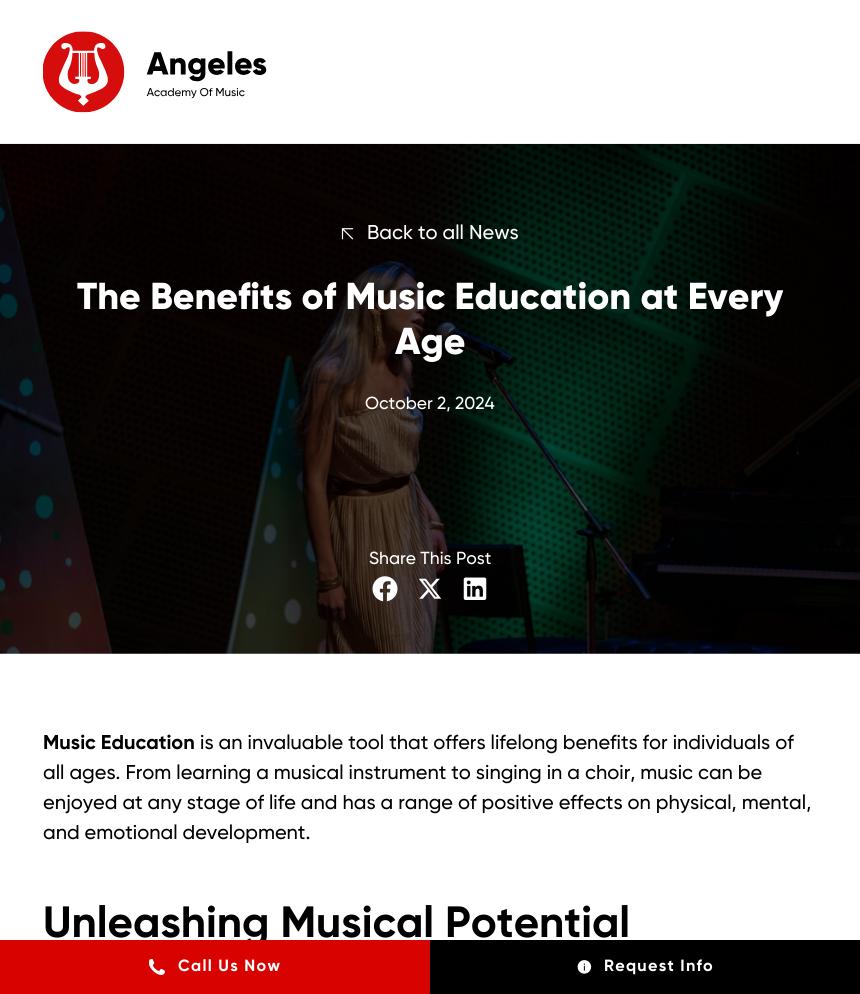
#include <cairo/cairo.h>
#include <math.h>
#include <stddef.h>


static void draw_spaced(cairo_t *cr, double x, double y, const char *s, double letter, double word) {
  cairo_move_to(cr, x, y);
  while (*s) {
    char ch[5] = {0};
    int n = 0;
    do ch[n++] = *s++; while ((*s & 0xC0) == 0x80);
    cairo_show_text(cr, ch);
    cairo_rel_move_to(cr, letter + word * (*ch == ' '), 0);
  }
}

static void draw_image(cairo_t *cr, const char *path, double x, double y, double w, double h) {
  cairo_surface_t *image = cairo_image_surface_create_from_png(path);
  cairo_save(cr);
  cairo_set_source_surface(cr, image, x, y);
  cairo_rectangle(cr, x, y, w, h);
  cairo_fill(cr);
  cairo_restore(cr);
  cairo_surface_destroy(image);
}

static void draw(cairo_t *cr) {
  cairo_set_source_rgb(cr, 1, 1, 1);
  cairo_paint(cr);
  draw_image(cr, "images/1.png", 43, 31, 224, 82);
  draw_image(cr, "images/2.png", 0, 143, 860, 511);
  draw_image(cr, "images/3.png", 341, 228, 13, 12);
  draw_image(cr, "images/4.png", 372, 576, 26, 26);
  draw_image(cr, "images/5.png", 418, 578, 24, 21);
  draw_image(cr, "images/6.png", 463, 577, 24, 23);
  cairo_set_source_rgb(cr, 0, 0, 0);
  cairo_rectangle(cr, 430, 940, 430, 54);
  cairo_fill(cr);
  draw_image(cr, "images/8.png", 577, 960, 15, 14);
  cairo_select_font_face(cr, "Gilroy Medium", CAIRO_FONT_SLANT_NORMAL, CAIRO_FONT_WEIGHT_NORMAL);
  cairo_set_font_size(cr, 20);
  cairo_set_source_rgb(cr, 1, 1, 1);
  cairo_move_to(cr, 367, 239);
  cairo_show_text(cr, "Back to all News");
  cairo_select_font_face(cr, "Gilroy ExtraBold", CAIRO_FONT_SLANT_NORMAL, CAIRO_FONT_WEIGHT_NORMAL);
  cairo_set_font_size(cr, 37.5);
  cairo_move_to(cr, 77, 309);
  cairo_show_text(cr, "The Benefits of Music Education at Every");
  cairo_move_to(cr, 395, 354);
  cairo_show_text(cr, "Age");
  cairo_select_font_face(cr, "Gilroy Medium", CAIRO_FONT_SLANT_NORMAL, CAIRO_FONT_WEIGHT_NORMAL);
  cairo_set_font_size(cr, 17.5);
  cairo_move_to(cr, 365, 409);
  cairo_show_text(cr, "October 2, 2024");
  cairo_move_to(cr, 369, 564);
  cairo_show_text(cr, "Share This Post");
  cairo_select_font_face(cr, "Gilroy", CAIRO_FONT_SLANT_NORMAL, CAIRO_FONT_WEIGHT_BOLD);
  cairo_set_font_size(cr, 20);
  cairo_set_source_rgb(cr, 0, 0, 0);
  cairo_move_to(cr, 43, 749);
  cairo_show_text(cr, "Music Education");
  cairo_select_font_face(cr, "Gilroy Medium", CAIRO_FONT_SLANT_NORMAL, CAIRO_FONT_WEIGHT_NORMAL);
  cairo_move_to(cr, 200, 749);
  cairo_show_text(cr, "is an invaluable tool that offers lifelong benefits for individuals of");
  cairo_move_to(cr, 43, 779);
  cairo_show_text(cr, "all ages. From learning a musical instrument to singing in a choir, music can be");
  cairo_move_to(cr, 43, 809);
  cairo_show_text(cr, "enjoyed at any stage of life and has a range of positive effects on physical, mental,");
  cairo_move_to(cr, 43, 839);
  cairo_show_text(cr, "and emotional development.");
  cairo_select_font_face(cr, "Gilroy", CAIRO_FONT_SLANT_NORMAL, CAIRO_FONT_WEIGHT_BOLD);
  cairo_set_font_size(cr, 43.75);
  cairo_move_to(cr, 43, 937);
  cairo_show_text(cr, "Unleashing Musical Potential");
  cairo_set_source_rgb(cr, 216 / 255.0, 3 / 255.0, 0);
  cairo_rectangle(cr, 0, 940, 430, 54);
  cairo_fill(cr);
  draw_image(cr, "images/7.png", 149, 959, 16, 16);
  cairo_set_font_size(cr, 16.25);
  cairo_set_source_rgb(cr, 1, 1, 1);
  draw_spaced(cr, 178, 971, "Call Us Now", 1.25, 0);
  draw_spaced(cr, 604, 971, "Request Info", 1.25, 0);
}

int main(void) {
  cairo_surface_t *surface = cairo_image_surface_create(CAIRO_FORMAT_RGB24, 860, 994);
  cairo_t *cr = cairo_create(surface);
  cairo_font_options_t *options = cairo_font_options_create();
  cairo_font_options_set_hint_metrics(options, CAIRO_HINT_METRICS_OFF);
  cairo_font_options_set_hint_style(options, CAIRO_HINT_STYLE_NONE);
  cairo_set_font_options(cr, options);
  cairo_set_miter_limit(cr, 4);
  draw(cr);
  cairo_surface_write_to_png(surface, "out.png");
  cairo_font_options_destroy(options);
  cairo_destroy(cr);
  cairo_surface_destroy(surface);
  return 0;
}
